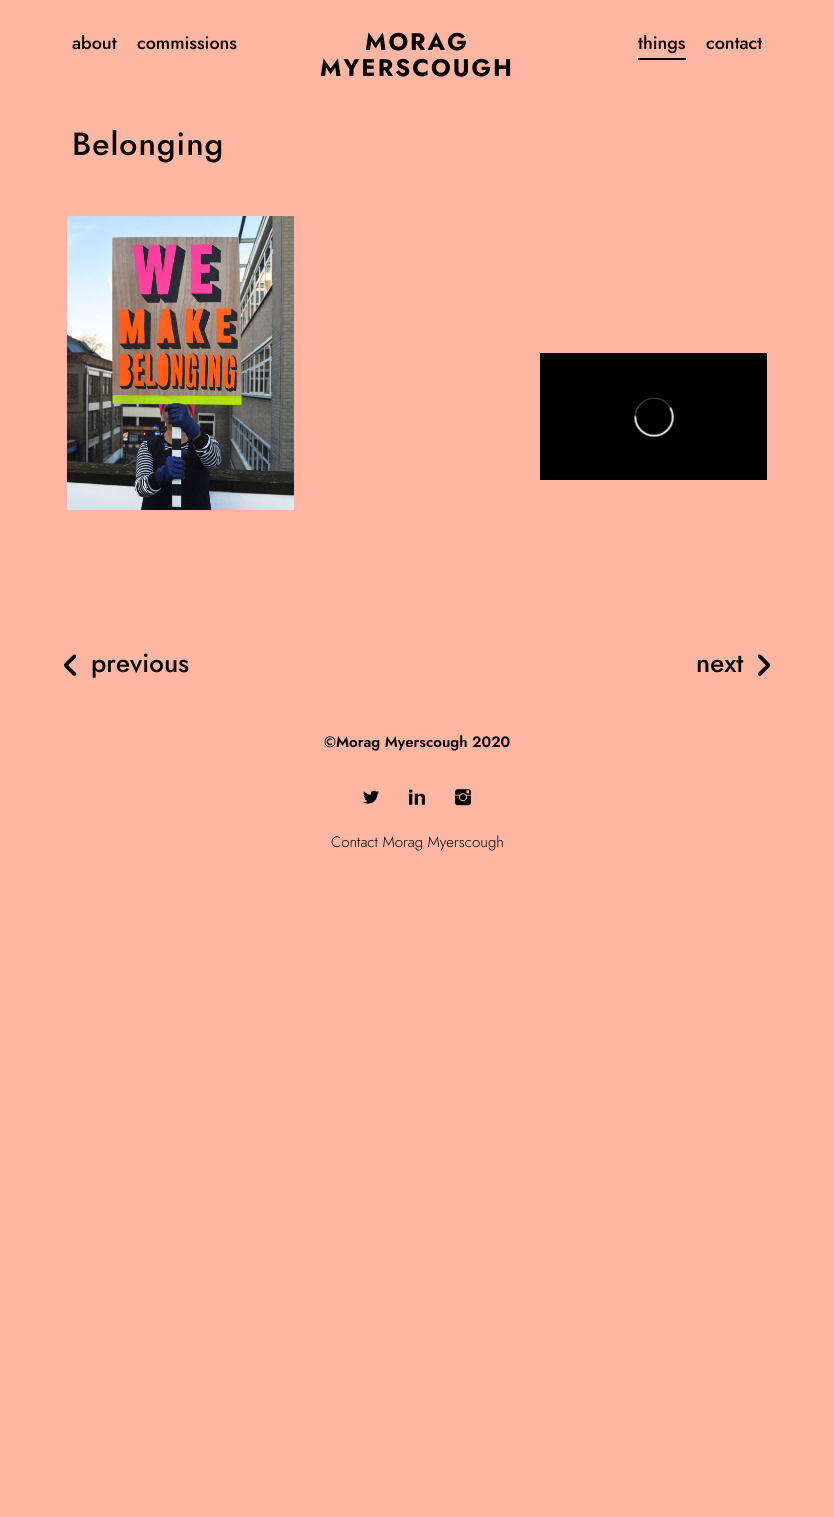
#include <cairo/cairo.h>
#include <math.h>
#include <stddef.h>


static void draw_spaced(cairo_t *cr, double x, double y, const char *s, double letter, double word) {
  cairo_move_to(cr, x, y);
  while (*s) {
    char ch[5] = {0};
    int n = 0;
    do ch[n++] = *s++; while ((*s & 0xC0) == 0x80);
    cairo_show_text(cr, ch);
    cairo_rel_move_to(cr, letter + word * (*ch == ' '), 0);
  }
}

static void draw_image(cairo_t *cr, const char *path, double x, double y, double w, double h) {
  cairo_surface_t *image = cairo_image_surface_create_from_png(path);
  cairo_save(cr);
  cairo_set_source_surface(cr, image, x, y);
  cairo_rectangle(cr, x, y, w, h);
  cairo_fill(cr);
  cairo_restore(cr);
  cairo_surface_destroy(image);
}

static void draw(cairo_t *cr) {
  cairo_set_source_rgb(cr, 1, 183 / 255.0, 163 / 255.0);
  cairo_paint(cr);
  cairo_set_source_rgb(cr, 0, 0, 0);
  cairo_rectangle(cr, 638, 58, 48, 2);
  cairo_fill(cr);
  draw_image(cr, "images/1.png", 67, 216, 227, 294);
  draw_image(cr, "images/2.png", 540, 353, 227, 127);
  draw_image(cr, "images/3.png", 64, 654, 13, 22);
  draw_image(cr, "images/4.png", 757, 654, 14, 22);
  draw_image(cr, "images/5.png", 363, 790, 16, 14);
  draw_image(cr, "images/6.png", 409, 789, 16, 16);
  draw_image(cr, "images/7.png", 455, 789, 16, 17);
  cairo_select_font_face(cr, "Jost Medium", CAIRO_FONT_SLANT_NORMAL, CAIRO_FONT_WEIGHT_NORMAL);
  cairo_set_font_size(cr, 18);
  cairo_move_to(cr, 72, 49);
  cairo_show_text(cr, "about");
  cairo_move_to(cr, 137, 49);
  cairo_show_text(cr, "commissions");
  cairo_select_font_face(cr, "Jost", CAIRO_FONT_SLANT_NORMAL, CAIRO_FONT_WEIGHT_BOLD);
  cairo_set_font_size(cr, 24);
  draw_spaced(cr, 365, 50, "MORAG", 2, 0);
  draw_spaced(cr, 320, 76, "MYERSCOUGH", 2, 0);
  cairo_select_font_face(cr, "Jost Medium", CAIRO_FONT_SLANT_NORMAL, CAIRO_FONT_WEIGHT_NORMAL);
  cairo_set_font_size(cr, 18);
  cairo_move_to(cr, 638, 49);
  cairo_show_text(cr, "things");
  cairo_move_to(cr, 706, 49);
  cairo_show_text(cr, "contact");
  cairo_set_font_size(cr, 32);
  draw_spaced(cr, 72, 155, "Belonging", 1, 0);
  cairo_set_font_size(cr, 26);
  cairo_move_to(cr, 91, 672);
  cairo_show_text(cr, "previous");
  cairo_move_to(cr, 696, 672);
  cairo_show_text(cr, "next");
  cairo_select_font_face(cr, "Jost SemiBold", CAIRO_FONT_SLANT_NORMAL, CAIRO_FONT_WEIGHT_NORMAL);
  cairo_set_font_size(cr, 15);
  cairo_move_to(cr, 324, 747);
  cairo_show_text(cr, "©Morag Myerscough 2020");
  cairo_select_font_face(cr, "Jost Light", CAIRO_FONT_SLANT_NORMAL, CAIRO_FONT_WEIGHT_NORMAL);
  cairo_move_to(cr, 331, 847);
  cairo_show_text(cr, "Contact Morag Myerscough");
}

int main(void) {
  cairo_surface_t *surface = cairo_image_surface_create(CAIRO_FORMAT_RGB24, 834, 1517);
  cairo_t *cr = cairo_create(surface);
  cairo_font_options_t *options = cairo_font_options_create();
  cairo_font_options_set_hint_metrics(options, CAIRO_HINT_METRICS_OFF);
  cairo_font_options_set_hint_style(options, CAIRO_HINT_STYLE_NONE);
  cairo_set_font_options(cr, options);
  cairo_set_miter_limit(cr, 4);
  draw(cr);
  cairo_surface_write_to_png(surface, "out.png");
  cairo_font_options_destroy(options);
  cairo_destroy(cr);
  cairo_surface_destroy(surface);
  return 0;
}
